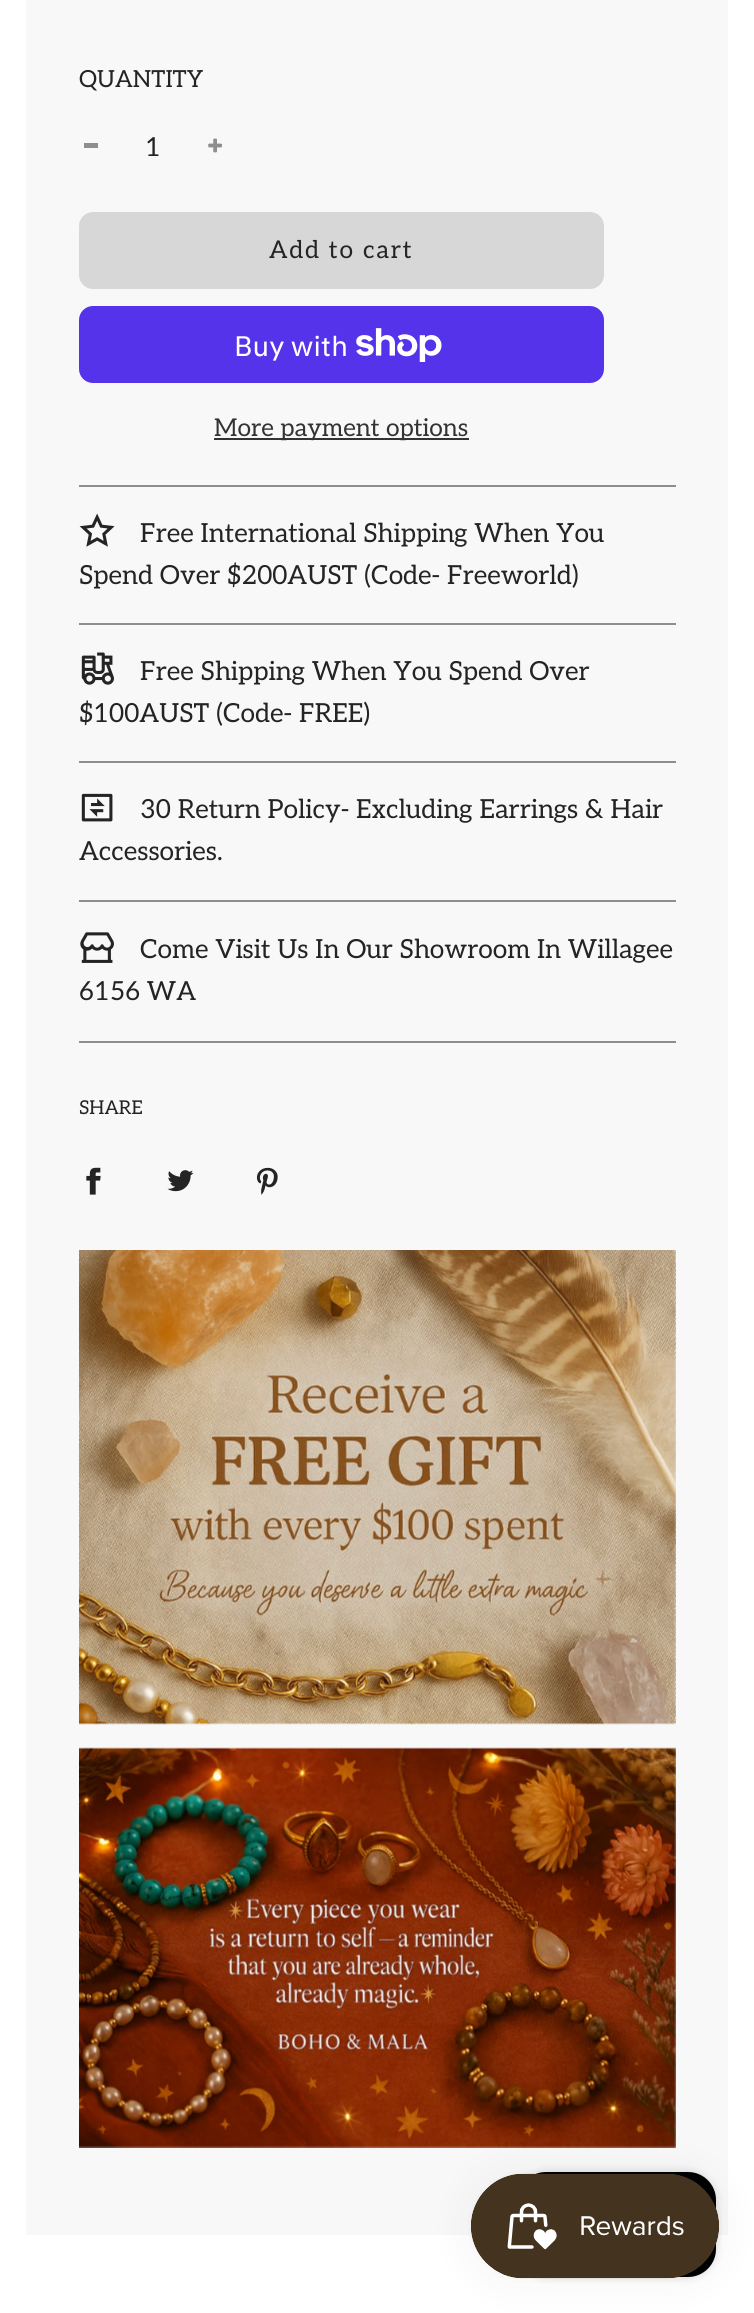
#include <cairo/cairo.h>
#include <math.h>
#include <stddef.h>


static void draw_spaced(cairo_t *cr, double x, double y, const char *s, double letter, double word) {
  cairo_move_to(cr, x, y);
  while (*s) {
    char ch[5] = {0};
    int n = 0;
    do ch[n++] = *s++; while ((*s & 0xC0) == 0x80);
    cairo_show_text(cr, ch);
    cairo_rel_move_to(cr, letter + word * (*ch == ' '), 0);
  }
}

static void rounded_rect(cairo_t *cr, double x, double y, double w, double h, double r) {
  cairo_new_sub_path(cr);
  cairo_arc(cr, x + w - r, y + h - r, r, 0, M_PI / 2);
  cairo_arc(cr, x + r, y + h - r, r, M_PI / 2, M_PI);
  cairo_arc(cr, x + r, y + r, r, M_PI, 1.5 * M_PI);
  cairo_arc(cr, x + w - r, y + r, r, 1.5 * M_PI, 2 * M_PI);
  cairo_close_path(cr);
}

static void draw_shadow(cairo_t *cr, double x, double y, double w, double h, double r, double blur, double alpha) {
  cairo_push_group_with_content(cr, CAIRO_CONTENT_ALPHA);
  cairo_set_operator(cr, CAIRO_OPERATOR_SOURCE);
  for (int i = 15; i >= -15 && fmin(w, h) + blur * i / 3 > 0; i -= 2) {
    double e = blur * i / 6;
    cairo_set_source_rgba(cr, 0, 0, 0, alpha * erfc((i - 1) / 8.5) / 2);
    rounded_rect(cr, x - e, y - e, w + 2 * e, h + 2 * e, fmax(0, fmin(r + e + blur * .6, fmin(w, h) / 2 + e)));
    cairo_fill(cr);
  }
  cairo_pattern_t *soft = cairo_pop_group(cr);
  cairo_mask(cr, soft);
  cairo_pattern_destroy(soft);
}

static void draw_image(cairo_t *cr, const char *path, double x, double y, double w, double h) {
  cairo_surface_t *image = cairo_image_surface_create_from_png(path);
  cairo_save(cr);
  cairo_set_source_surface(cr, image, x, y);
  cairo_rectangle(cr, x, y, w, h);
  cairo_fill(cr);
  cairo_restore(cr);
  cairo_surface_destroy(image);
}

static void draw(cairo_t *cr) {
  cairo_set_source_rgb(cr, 1, 1, 1);
  cairo_paint(cr);
  cairo_set_source_rgb(cr, 248 / 255.0, 248 / 255.0, 248 / 255.0);
  cairo_rectangle(cr, 26, 0, 702, 2235);
  cairo_fill(cr);
  cairo_set_source_rgb(cr, 142 / 255.0, 142 / 255.0, 142 / 255.0);
  cairo_rectangle(cr, 84, 143, 14, 5);
  cairo_fill(cr);
  draw_image(cr, "images/1.png", 208, 138, 14, 15);
  cairo_set_source_rgb(cr, 215 / 255.0, 215 / 255.0, 215 / 255.0);
  rounded_rect(cr, 79, 212, 525, 77, 14);
  cairo_fill(cr);
  cairo_set_source_rgb(cr, 84 / 255.0, 51 / 255.0, 235 / 255.0);
  rounded_rect(cr, 79, 306, 525, 77, 14);
  cairo_fill(cr);
  draw_image(cr, "images/2.png", 356, 328, 86, 34);
  cairo_set_source_rgb(cr, 51 / 255.0, 51 / 255.0, 51 / 255.0);
  cairo_rectangle(cr, 214, 438, 255, 2);
  cairo_fill(cr);
  cairo_set_source_rgb(cr, 142 / 255.0, 142 / 255.0, 142 / 255.0);
  cairo_rectangle(cr, 79, 485, 597, 2);
  cairo_fill(cr);
  cairo_rectangle(cr, 79, 623, 597, 2);
  cairo_fill(cr);
  draw_image(cr, "images/3.png", 79, 513, 36, 34);
  cairo_rectangle(cr, 79, 761, 597, 2);
  cairo_fill(cr);
  draw_image(cr, "images/4.png", 81, 652, 33, 33);
  cairo_rectangle(cr, 79, 900, 597, 2);
  cairo_fill(cr);
  draw_image(cr, "images/5.png", 81, 793, 32, 29);
  cairo_rectangle(cr, 79, 1041, 597, 2);
  cairo_fill(cr);
  draw_image(cr, "images/6.png", 80, 932, 34, 31);
  draw_image(cr, "images/7.png", 86, 1167, 15, 28);
  draw_image(cr, "images/8.png", 167, 1170, 27, 22);
  draw_image(cr, "images/9.png", 256, 1167, 22, 28);
  draw_image(cr, "images/10.png", 79, 1250, 597, 475);
  draw_image(cr, "images/11.png", 79, 1747, 597, 401);
  cairo_set_source_rgb(cr, 0, 0, 0);
  draw_shadow(cr, 518, 2172, 198, 105, 28, 4.5, 0.15);
  cairo_set_source_rgb(cr, 0, 0, 0);
  rounded_rect(cr, 518, 2172, 198, 105, 28);
  cairo_fill(cr);
  cairo_set_source_rgb(cr, 0, 0, 0);
  draw_shadow(cr, 471, 2174, 248, 105, 52.5, 22, 0.05);
  draw_image(cr, "images/12.png", 471, 2173, 248, 106);
  cairo_select_font_face(cr, "Aleo", CAIRO_FONT_SLANT_NORMAL, CAIRO_FONT_WEIGHT_NORMAL);
  cairo_set_font_size(cr, 23.5);
  cairo_set_source_rgb(cr, 36 / 255.0, 36 / 255.0, 36 / 255.0);
  cairo_move_to(cr, 79, 87);
  cairo_show_text(cr, "QUANTITY");
  cairo_set_font_size(cr, 26.25);
  cairo_move_to(cr, 145, 156);
  cairo_show_text(cr, "1");
  cairo_set_font_size(cr, 24.5);
  draw_spaced(cr, 269, 258, "Add to cart", 1.75, 0);
  cairo_select_font_face(cr, "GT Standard", CAIRO_FONT_SLANT_NORMAL, CAIRO_FONT_WEIGHT_NORMAL);
  cairo_set_font_size(cr, 28);
  cairo_set_source_rgb(cr, 1, 1, 1);
  cairo_move_to(cr, 234, 356);
  cairo_show_text(cr, "Buy with");
  cairo_select_font_face(cr, "Aleo", CAIRO_FONT_SLANT_NORMAL, CAIRO_FONT_WEIGHT_NORMAL);
  cairo_set_font_size(cr, 24.5);
  cairo_set_source_rgb(cr, 51 / 255.0, 51 / 255.0, 51 / 255.0);
  cairo_move_to(cr, 214, 436);
  cairo_show_text(cr, "More payment options");
  cairo_set_font_size(cr, 26.25);
  cairo_set_source_rgb(cr, 36 / 255.0, 36 / 255.0, 36 / 255.0);
  cairo_move_to(cr, 140, 542);
  cairo_show_text(cr, "Free International Shipping When You");
  cairo_move_to(cr, 79, 584);
  cairo_show_text(cr, "Spend Over $200AUST (Code- Freeworld)");
  cairo_move_to(cr, 140, 680);
  cairo_show_text(cr, "Free Shipping When You Spend Over");
  cairo_move_to(cr, 79, 722);
  cairo_show_text(cr, "$100AUST (Code- FREE)");
  cairo_move_to(cr, 140, 818);
  cairo_show_text(cr, "30 Return Policy- Excluding Earrings & Hair");
  cairo_move_to(cr, 79, 860);
  cairo_show_text(cr, "Accessories.");
  cairo_move_to(cr, 140, 958);
  cairo_show_text(cr, "Come Visit Us In Our Showroom In Willagee");
  cairo_move_to(cr, 79, 1000);
  cairo_show_text(cr, "6156 WA");
  cairo_set_font_size(cr, 19);
  cairo_move_to(cr, 79, 1114);
  cairo_show_text(cr, "SHARE");
}

int main(void) {
  cairo_surface_t *surface = cairo_image_surface_create(CAIRO_FORMAT_RGB24, 754, 2313);
  cairo_t *cr = cairo_create(surface);
  cairo_font_options_t *options = cairo_font_options_create();
  cairo_font_options_set_hint_metrics(options, CAIRO_HINT_METRICS_OFF);
  cairo_font_options_set_hint_style(options, CAIRO_HINT_STYLE_NONE);
  cairo_set_font_options(cr, options);
  cairo_set_miter_limit(cr, 4);
  draw(cr);
  cairo_surface_write_to_png(surface, "out.png");
  cairo_font_options_destroy(options);
  cairo_destroy(cr);
  cairo_surface_destroy(surface);
  return 0;
}
